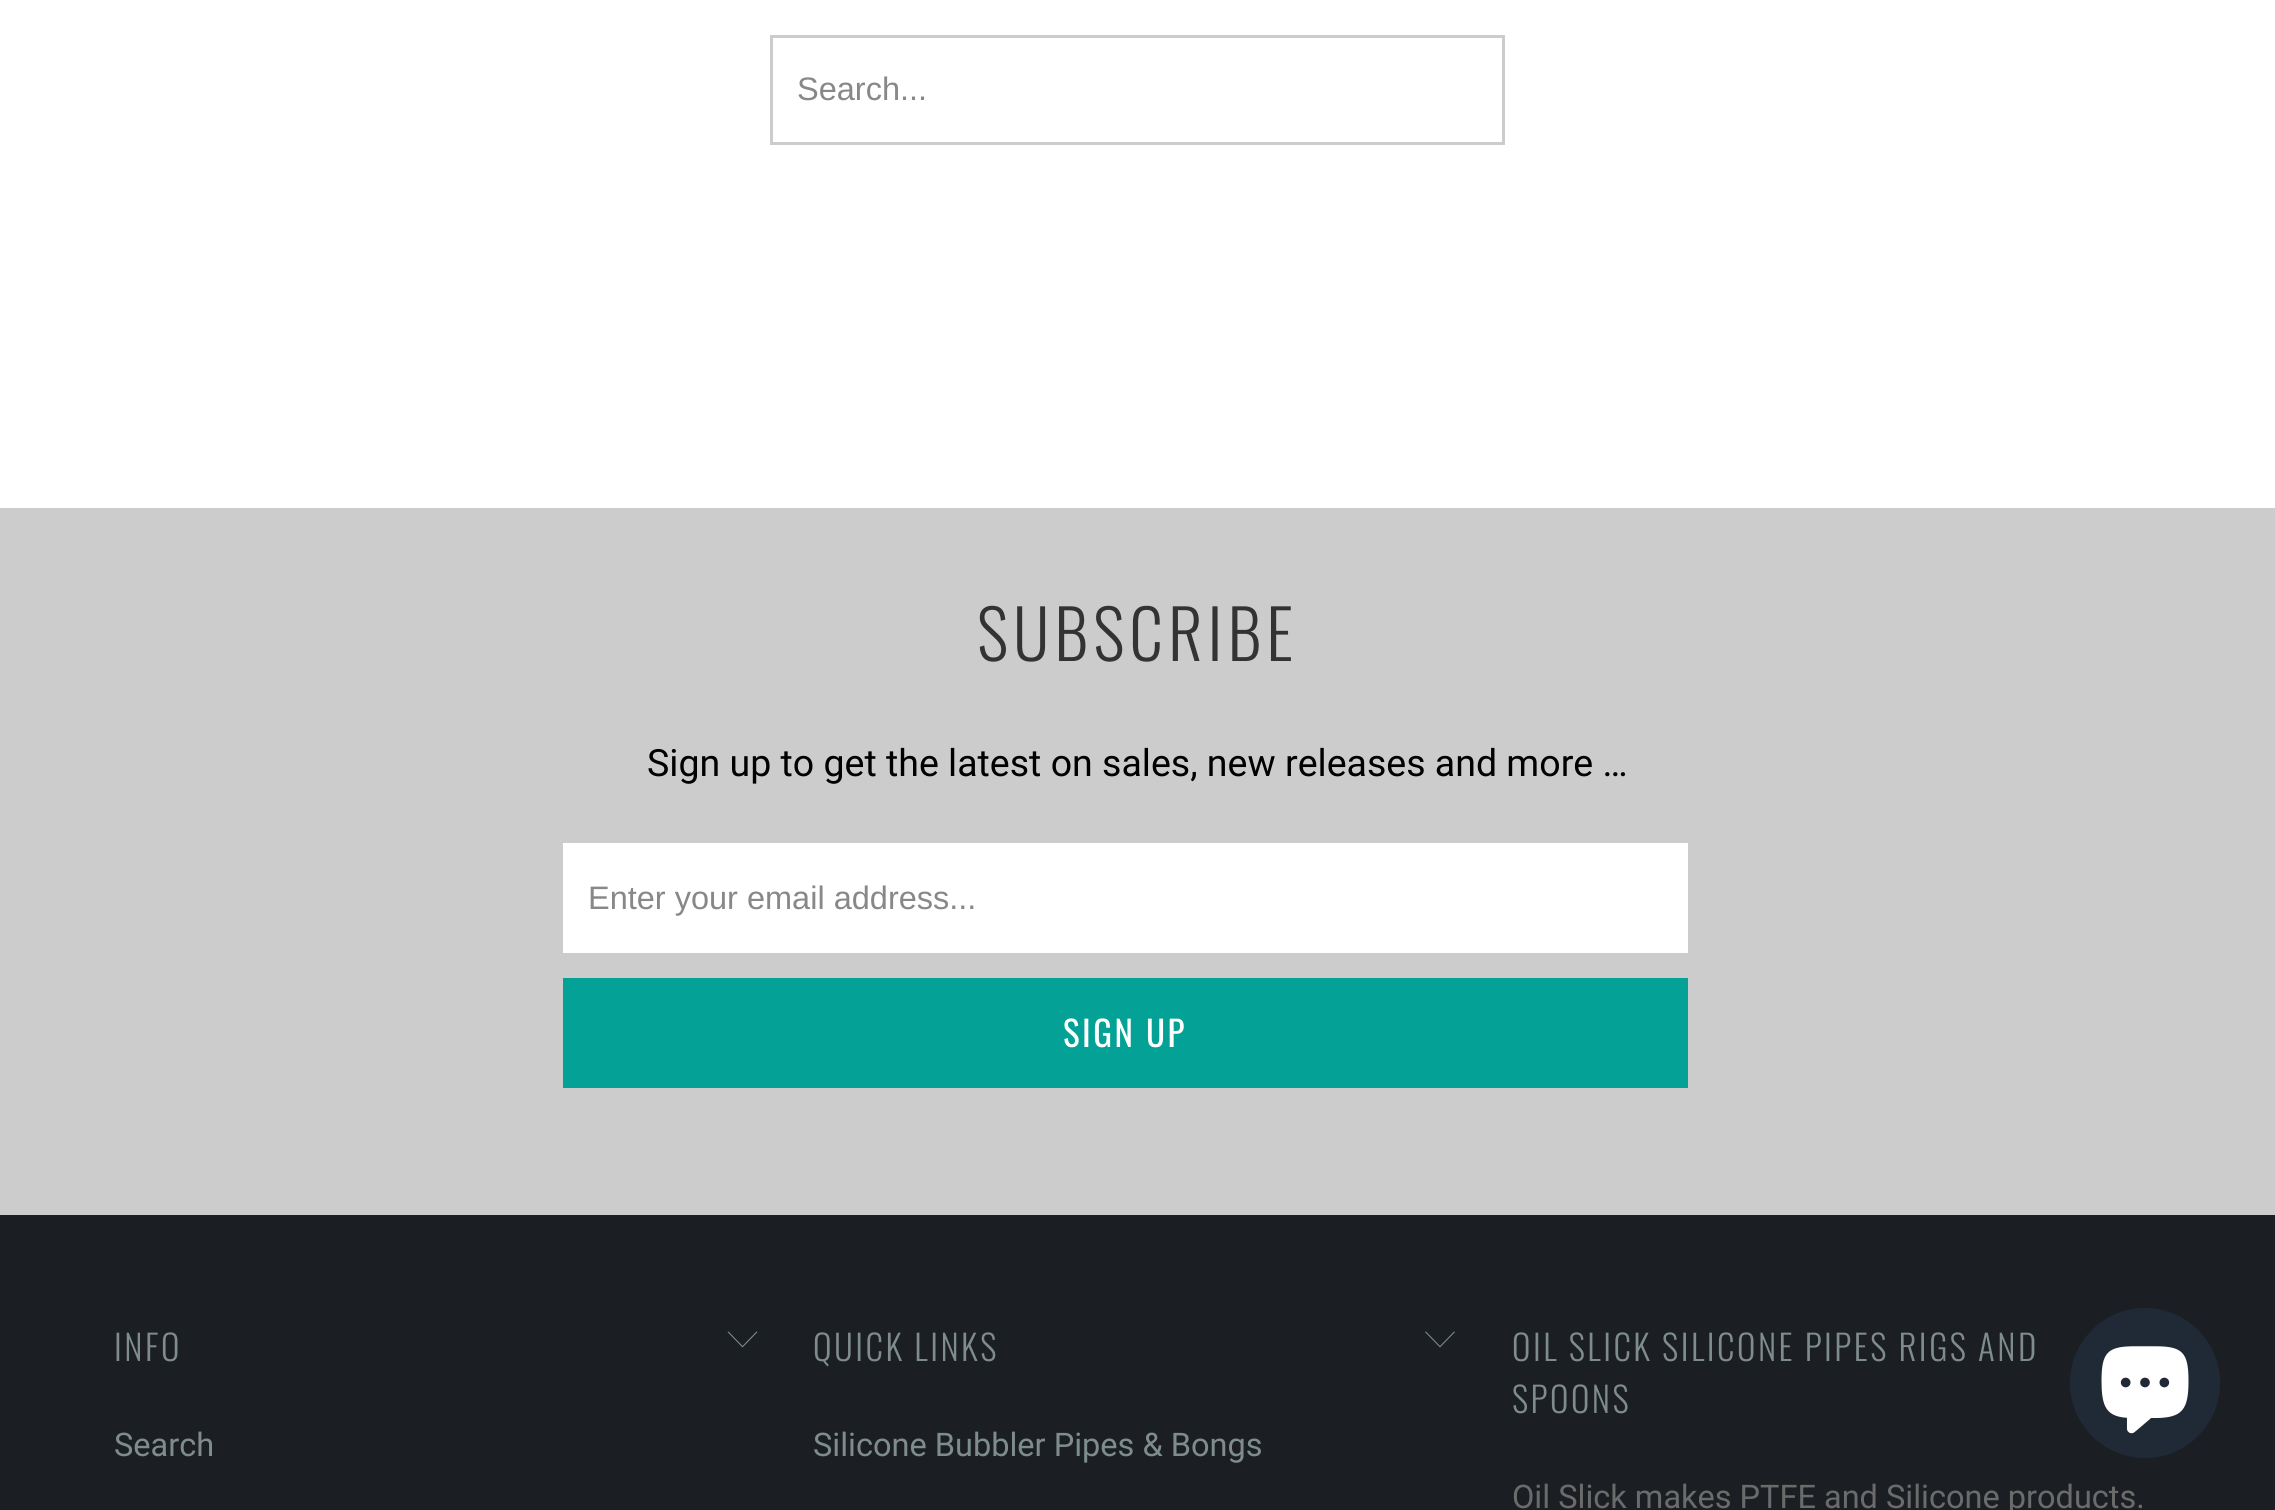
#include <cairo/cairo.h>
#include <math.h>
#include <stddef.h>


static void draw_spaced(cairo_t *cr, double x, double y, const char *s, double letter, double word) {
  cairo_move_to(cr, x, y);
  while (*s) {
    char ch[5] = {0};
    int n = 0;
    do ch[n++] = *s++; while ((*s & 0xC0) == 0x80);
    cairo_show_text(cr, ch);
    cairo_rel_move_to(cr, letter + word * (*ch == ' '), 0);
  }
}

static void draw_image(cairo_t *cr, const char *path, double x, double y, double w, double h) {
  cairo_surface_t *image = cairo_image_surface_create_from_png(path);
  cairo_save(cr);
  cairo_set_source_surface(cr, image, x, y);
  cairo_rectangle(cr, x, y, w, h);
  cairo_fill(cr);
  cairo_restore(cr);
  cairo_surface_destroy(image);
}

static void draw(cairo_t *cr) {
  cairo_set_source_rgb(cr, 1, 1, 1);
  cairo_paint(cr);
  cairo_rectangle(cr, 771.5, 36.5, 732, 107);
  cairo_set_source_rgb(cr, 204 / 255.0, 204 / 255.0, 204 / 255.0);
  cairo_set_line_width(cr, 3);
  cairo_stroke(cr);
  cairo_rectangle(cr, 0, 508, 2275, 707);
  cairo_fill(cr);
  cairo_set_source_rgb(cr, 1, 1, 1);
  cairo_rectangle(cr, 563, 843, 1125, 110);
  cairo_fill(cr);
  cairo_set_source_rgb(cr, 3 / 255.0, 161 / 255.0, 150 / 255.0);
  cairo_rectangle(cr, 563, 978, 1125, 110);
  cairo_fill(cr);
  cairo_set_source_rgb(cr, 27 / 255.0, 31 / 255.0, 35 / 255.0);
  cairo_rectangle(cr, 0, 1215, 2275, 295);
  cairo_fill(cr);
  cairo_set_source_rgb(cr, 127 / 255.0, 140 / 255.0, 141 / 255.0);
  cairo_new_path(cr);
  cairo_move_to(cr, 742.5, 1347.5);
  cairo_line_to(cr, 727.5, 1332);
  cairo_line_to(cr, 728.5, 1331.5);
  cairo_line_to(cr, 742.5, 1346);
  cairo_line_to(cr, 756.5, 1331.5);
  cairo_line_to(cr, 757.5, 1332);
  cairo_close_path(cr);
  cairo_fill(cr);
  cairo_new_path(cr);
  cairo_move_to(cr, 1440, 1347.5);
  cairo_line_to(cr, 1425, 1332);
  cairo_line_to(cr, 1426, 1331.5);
  cairo_line_to(cr, 1440, 1346);
  cairo_line_to(cr, 1454, 1331.5);
  cairo_line_to(cr, 1455, 1332);
  cairo_close_path(cr);
  cairo_fill(cr);
  cairo_set_source_rgb(cr, 32 / 255.0, 42 / 255.0, 54 / 255.0);
  cairo_arc(cr, 2145, 1383, 75, 0, 2 * M_PI);
  cairo_fill(cr);
  draw_image(cr, "images/1.png", 2101, 1346, 88, 88);
  cairo_select_font_face(cr, "Liberation Sans", CAIRO_FONT_SLANT_NORMAL, CAIRO_FONT_WEIGHT_NORMAL);
  cairo_set_font_size(cr, 32.5);
  cairo_set_source_rgb(cr, 136 / 255.0, 136 / 255.0, 136 / 255.0);
  cairo_move_to(cr, 797, 100);
  cairo_show_text(cr, "Search...");
  cairo_select_font_face(cr, "Oswald Light", CAIRO_FONT_SLANT_NORMAL, CAIRO_FONT_WEIGHT_NORMAL);
  cairo_set_font_size(cr, 67.5);
  cairo_set_source_rgb(cr, 51 / 255.0, 51 / 255.0, 51 / 255.0);
  draw_spaced(cr, 977, 661, "SUBSCRIBE", 5, 0);
  cairo_select_font_face(cr, "Roboto", CAIRO_FONT_SLANT_NORMAL, CAIRO_FONT_WEIGHT_NORMAL);
  cairo_set_font_size(cr, 37.5);
  cairo_set_source_rgb(cr, 0, 0, 0);
  cairo_move_to(cr, 647, 776);
  cairo_show_text(cr, "Sign up to get the latest on sales, new releases and more …");
  cairo_select_font_face(cr, "Liberation Sans", CAIRO_FONT_SLANT_NORMAL, CAIRO_FONT_WEIGHT_NORMAL);
  cairo_set_font_size(cr, 32.5);
  cairo_set_source_rgb(cr, 136 / 255.0, 136 / 255.0, 136 / 255.0);
  cairo_move_to(cr, 588, 909);
  cairo_show_text(cr, "Enter your email address...");
  cairo_select_font_face(cr, "Oswald", CAIRO_FONT_SLANT_NORMAL, CAIRO_FONT_WEIGHT_NORMAL);
  cairo_set_font_size(cr, 35);
  cairo_set_source_rgb(cr, 1, 1, 1);
  draw_spaced(cr, 1063, 1047, "SIGN UP", 2.5, 0);
  cairo_select_font_face(cr, "Oswald Light", CAIRO_FONT_SLANT_NORMAL, CAIRO_FONT_WEIGHT_NORMAL);
  cairo_set_source_rgb(cr, 127 / 255.0, 140 / 255.0, 141 / 255.0);
  draw_spaced(cr, 114, 1361, "INFO", 2.5, 0);
  cairo_select_font_face(cr, "Roboto", CAIRO_FONT_SLANT_NORMAL, CAIRO_FONT_WEIGHT_NORMAL);
  cairo_set_font_size(cr, 32.5);
  cairo_move_to(cr, 114, 1456);
  cairo_show_text(cr, "Search");
  cairo_select_font_face(cr, "Oswald Light", CAIRO_FONT_SLANT_NORMAL, CAIRO_FONT_WEIGHT_NORMAL);
  cairo_set_font_size(cr, 35);
  draw_spaced(cr, 813, 1361, "QUICK LINKS", 2.5, 0);
  cairo_select_font_face(cr, "Roboto", CAIRO_FONT_SLANT_NORMAL, CAIRO_FONT_WEIGHT_NORMAL);
  cairo_set_font_size(cr, 32.5);
  cairo_move_to(cr, 813, 1456);
  cairo_show_text(cr, "Silicone Bubbler Pipes & Bongs");
  cairo_select_font_face(cr, "Oswald Light", CAIRO_FONT_SLANT_NORMAL, CAIRO_FONT_WEIGHT_NORMAL);
  cairo_set_font_size(cr, 35);
  draw_spaced(cr, 1512, 1361, "OIL SLICK SILICONE PIPES RIGS AND", 2.5, 0);
  draw_spaced(cr, 1512, 1413, "SPOONS", 2.5, 0);
  cairo_select_font_face(cr, "Roboto", CAIRO_FONT_SLANT_NORMAL, CAIRO_FONT_WEIGHT_NORMAL);
  cairo_set_font_size(cr, 32.5);
  cairo_set_source_rgb(cr, 107 / 255.0, 107 / 255.0, 107 / 255.0);
  cairo_move_to(cr, 1512, 1508);
  cairo_show_text(cr, "Oil Slick makes PTFE and Silicone products.");
}

int main(void) {
  cairo_surface_t *surface = cairo_image_surface_create(CAIRO_FORMAT_RGB24, 2275, 1510);
  cairo_t *cr = cairo_create(surface);
  cairo_font_options_t *options = cairo_font_options_create();
  cairo_font_options_set_hint_metrics(options, CAIRO_HINT_METRICS_OFF);
  cairo_font_options_set_hint_style(options, CAIRO_HINT_STYLE_NONE);
  cairo_set_font_options(cr, options);
  cairo_set_miter_limit(cr, 4);
  draw(cr);
  cairo_surface_write_to_png(surface, "out.png");
  cairo_font_options_destroy(options);
  cairo_destroy(cr);
  cairo_surface_destroy(surface);
  return 0;
}
